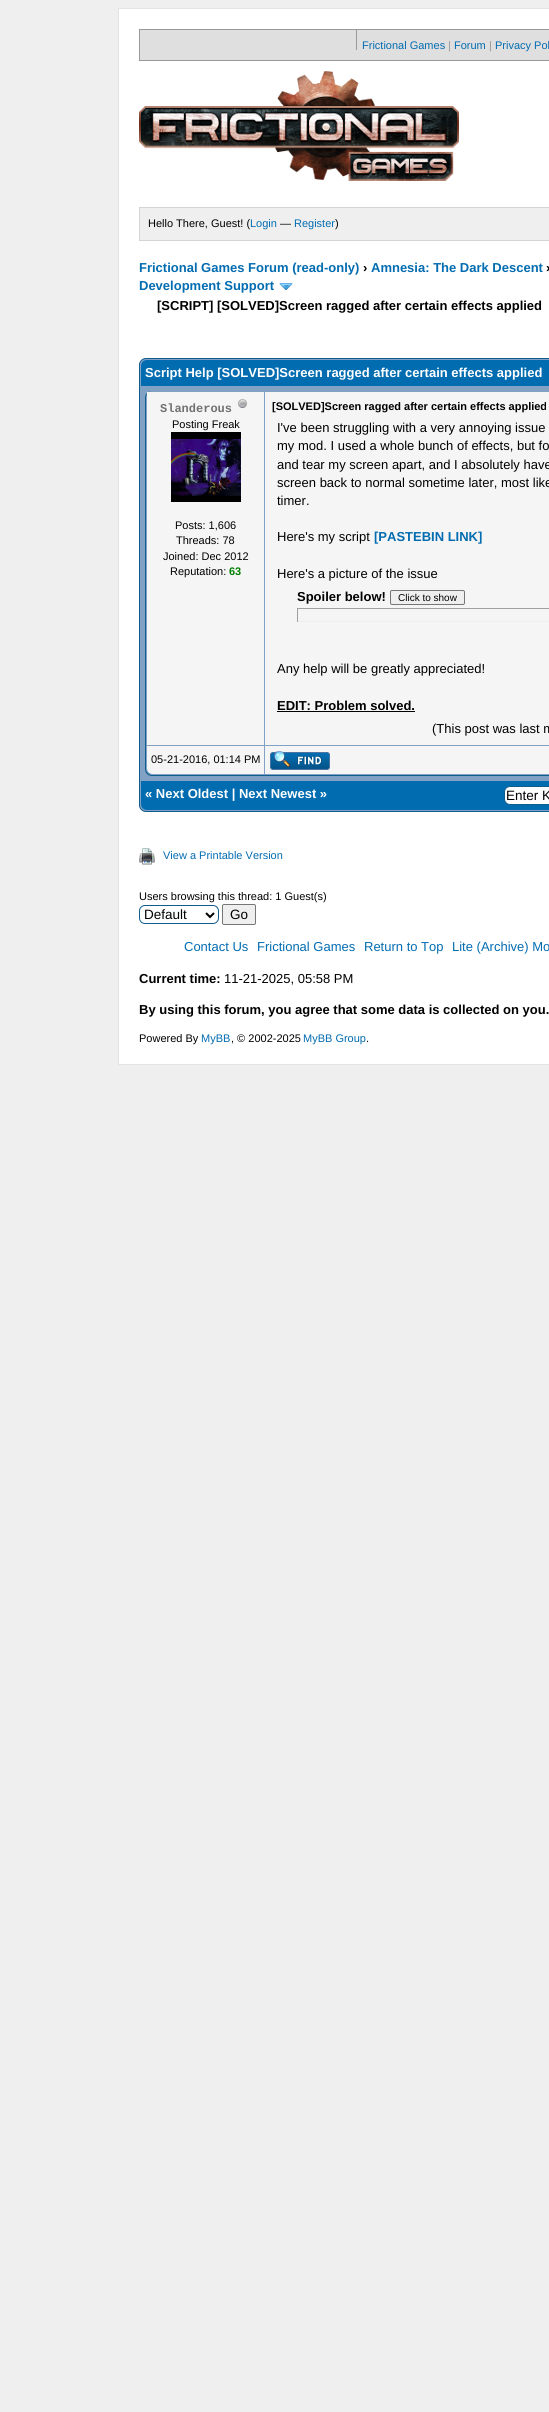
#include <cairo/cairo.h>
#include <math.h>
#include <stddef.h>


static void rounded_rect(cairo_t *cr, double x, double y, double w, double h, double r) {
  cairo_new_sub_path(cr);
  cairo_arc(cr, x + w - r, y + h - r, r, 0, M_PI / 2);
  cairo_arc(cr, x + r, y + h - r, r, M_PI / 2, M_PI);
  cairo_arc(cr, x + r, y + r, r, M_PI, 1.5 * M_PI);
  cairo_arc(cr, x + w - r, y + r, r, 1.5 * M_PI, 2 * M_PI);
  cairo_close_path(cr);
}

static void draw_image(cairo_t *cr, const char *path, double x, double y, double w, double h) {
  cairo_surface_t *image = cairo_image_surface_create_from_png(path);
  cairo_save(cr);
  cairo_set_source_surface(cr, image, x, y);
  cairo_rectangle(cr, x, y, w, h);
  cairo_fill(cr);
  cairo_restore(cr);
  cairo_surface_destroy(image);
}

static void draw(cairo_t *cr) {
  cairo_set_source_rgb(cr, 239 / 255.0, 239 / 255.0, 239 / 255.0);
  cairo_paint(cr);
  cairo_set_source_rgb(cr, 1, 1, 1);
  cairo_rectangle(cr, 118.5, 8.5, 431, 1056);
  cairo_fill_preserve(cr);
  cairo_set_source_rgb(cr, 228 / 255.0, 228 / 255.0, 228 / 255.0);
  cairo_set_line_width(cr, 1);
  cairo_stroke(cr);
  cairo_set_source_rgb(cr, 223 / 255.0, 223 / 255.0, 223 / 255.0);
  cairo_rectangle(cr, 139.5, 29.5, 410, 31);
  cairo_fill_preserve(cr);
  cairo_set_source_rgb(cr, 153 / 255.0, 153 / 255.0, 153 / 255.0);
  cairo_stroke(cr);
  cairo_rectangle(cr, 356, 30, 1, 20);
  cairo_fill(cr);
  draw_image(cr, "images/1.png", 139, 71, 320, 110);
  cairo_set_source_rgb(cr, 239 / 255.0, 239 / 255.0, 239 / 255.0);
  cairo_rectangle(cr, 139.5, 207.5, 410, 33);
  cairo_fill_preserve(cr);
  cairo_set_source_rgb(cr, 212 / 255.0, 212 / 255.0, 212 / 255.0);
  cairo_stroke(cr);
  draw_image(cr, "images/2.png", 279, 283, 14, 7);
  cairo_set_source_rgb(cr, 129 / 255.0, 162 / 255.0, 196 / 255.0);
  rounded_rect(cr, 139.5, 358.5, 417, 453, 6.5);
  cairo_fill_preserve(cr);
  cairo_set_source_rgb(cr, 15 / 255.0, 92 / 255.0, 142 / 255.0);
  cairo_stroke(cr);
  cairo_set_source_rgb(cr, 2 / 255.0, 108 / 255.0, 177 / 255.0);
  cairo_new_path(cr);
  cairo_move_to(cr, 147, 360);
  cairo_line_to(cr, 549, 360);
  cairo_curve_to(cr, 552.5, 360, 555, 362.5, 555, 366);
  cairo_line_to(cr, 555, 386);
  cairo_line_to(cr, 141, 386);
  cairo_line_to(cr, 141, 366);
  cairo_curve_to(cr, 141, 362.5, 143.5, 360, 147, 360);
  cairo_close_path(cr);
  cairo_fill(cr);
  cairo_set_source_rgb(cr, 15 / 255.0, 92 / 255.0, 142 / 255.0);
  cairo_set_fill_rule(cr, CAIRO_FILL_RULE_EVEN_ODD);
  cairo_new_path(cr);
  cairo_move_to(cr, 152, 391);
  cairo_line_to(cr, 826, 391);
  cairo_curve_to(cr, 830, 391, 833, 394, 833, 398);
  cairo_line_to(cr, 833, 769);
  cairo_curve_to(cr, 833, 773, 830, 776, 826, 776);
  cairo_line_to(cr, 152, 776);
  cairo_curve_to(cr, 148, 776, 145, 773, 145, 769);
  cairo_line_to(cr, 145, 398);
  cairo_curve_to(cr, 145, 394, 148, 391, 152, 391);
  cairo_close_path(cr);
  cairo_move_to(cr, 152, 391);
  cairo_line_to(cr, 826, 391);
  cairo_curve_to(cr, 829, 391, 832, 394, 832, 398);
  cairo_line_to(cr, 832, 769);
  cairo_curve_to(cr, 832, 772, 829, 775, 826, 775);
  cairo_line_to(cr, 152, 775);
  cairo_curve_to(cr, 149, 775, 146, 772, 146, 769);
  cairo_line_to(cr, 146, 398);
  cairo_curve_to(cr, 146, 394, 149, 391, 152, 391);
  cairo_close_path(cr);
  cairo_fill(cr);
  cairo_set_source_rgb(cr, 245 / 255.0, 245 / 255.0, 245 / 255.0);
  cairo_rectangle(cr, 147, 392, 117, 353);
  cairo_fill(cr);
  draw_image(cr, "images/3.png", 238, 399, 9, 9);
  draw_image(cr, "images/4.png", 171, 432, 70, 70);
  cairo_rectangle(cr, 265, 392, 284, 353);
  cairo_fill(cr);
  cairo_set_source_rgb(cr, 239 / 255.0, 239 / 255.0, 239 / 255.0);
  rounded_rect(cr, 390.5, 590.5, 74, 14, 1.5);
  cairo_fill_preserve(cr);
  cairo_set_source_rgb(cr, 118 / 255.0, 118 / 255.0, 118 / 255.0);
  cairo_stroke(cr);
  cairo_set_source_rgb(cr, 159 / 255.0, 159 / 255.0, 159 / 255.0);
  cairo_rectangle(cr, 297, 608, 252, 1);
  cairo_fill(cr);
  cairo_set_source_rgb(cr, 238 / 255.0, 238 / 255.0, 238 / 255.0);
  cairo_rectangle(cr, 297, 621, 252, 1);
  cairo_fill(cr);
  cairo_set_source_rgb(cr, 159 / 255.0, 159 / 255.0, 159 / 255.0);
  cairo_rectangle(cr, 297, 608, 1, 14);
  cairo_fill(cr);
  cairo_set_source_rgb(cr, 0, 0, 0);
  cairo_rectangle(cr, 277, 711, 138, 1);
  cairo_fill(cr);
  cairo_set_source_rgb(cr, 245 / 255.0, 245 / 255.0, 245 / 255.0);
  cairo_new_path(cr);
  cairo_move_to(cr, 147, 746);
  cairo_line_to(cr, 264, 746);
  cairo_line_to(cr, 264, 774);
  cairo_line_to(cr, 153, 774);
  cairo_curve_to(cr, 149.5, 774, 147, 771.5, 147, 768);
  cairo_close_path(cr);
  cairo_fill(cr);
  cairo_rectangle(cr, 265, 746, 284, 28);
  cairo_fill(cr);
  draw_image(cr, "images/5.png", 270, 751, 60, 19);
  cairo_set_source_rgb(cr, 2 / 255.0, 108 / 255.0, 177 / 255.0);
  cairo_new_path(cr);
  cairo_move_to(cr, 141, 781);
  cairo_line_to(cr, 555, 781);
  cairo_line_to(cr, 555, 804);
  cairo_curve_to(cr, 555, 807.5, 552.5, 810, 549, 810);
  cairo_line_to(cr, 147, 810);
  cairo_curve_to(cr, 143.5, 810, 141, 807.5, 141, 804);
  cairo_close_path(cr);
  cairo_fill(cr);
  cairo_set_source_rgb(cr, 1, 1, 1);
  rounded_rect(cr, 504.5, 786.5, 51, 18, 5.5);
  cairo_fill_preserve(cr);
  cairo_set_source_rgb(cr, 15 / 255.0, 92 / 255.0, 142 / 255.0);
  cairo_stroke(cr);
  draw_image(cr, "images/6.png", 139, 848, 16, 17);
  rounded_rect(cr, 139.5, 905.5, 79, 18, 5.5);
  cairo_stroke(cr);
  cairo_new_path(cr);
  cairo_move_to(cr, 206, 913);
  cairo_line_to(cr, 210, 917);
  cairo_line_to(cr, 214, 913);
  cairo_set_source_rgb(cr, 0, 0, 0);
  cairo_set_line_width(cr, 2);
  cairo_stroke(cr);
  cairo_set_source_rgb(cr, 239 / 255.0, 239 / 255.0, 239 / 255.0);
  rounded_rect(cr, 222.5, 904.5, 33, 20, 1.5);
  cairo_fill_preserve(cr);
  cairo_set_source_rgb(cr, 118 / 255.0, 118 / 255.0, 118 / 255.0);
  cairo_set_line_width(cr, 1);
  cairo_stroke(cr);
  cairo_select_font_face(cr, "Liberation Sans", CAIRO_FONT_SLANT_NORMAL, CAIRO_FONT_WEIGHT_NORMAL);
  cairo_set_font_size(cr, 11);
  cairo_set_source_rgb(cr, 2 / 255.0, 108 / 255.0, 177 / 255.0);
  cairo_move_to(cr, 362, 49);
  cairo_show_text(cr, "Frictional Games");
  cairo_set_source_rgb(cr, 153 / 255.0, 153 / 255.0, 153 / 255.0);
  cairo_move_to(cr, 448, 49);
  cairo_show_text(cr, "|");
  cairo_set_source_rgb(cr, 2 / 255.0, 108 / 255.0, 177 / 255.0);
  cairo_move_to(cr, 454, 49);
  cairo_show_text(cr, "Forum");
  cairo_set_source_rgb(cr, 153 / 255.0, 153 / 255.0, 153 / 255.0);
  cairo_move_to(cr, 489, 49);
  cairo_show_text(cr, "|");
  cairo_set_source_rgb(cr, 2 / 255.0, 108 / 255.0, 177 / 255.0);
  cairo_move_to(cr, 495, 49);
  cairo_show_text(cr, "Privacy Pol");
  cairo_set_source_rgb(cr, 0, 0, 0);
  cairo_move_to(cr, 148, 227);
  cairo_show_text(cr, "Hello There, Guest! (");
  cairo_set_source_rgb(cr, 2 / 255.0, 108 / 255.0, 177 / 255.0);
  cairo_move_to(cr, 250, 227);
  cairo_show_text(cr, "Login");
  cairo_set_source_rgb(cr, 0, 0, 0);
  cairo_move_to(cr, 280, 227);
  cairo_show_text(cr, "—");
  cairo_set_source_rgb(cr, 2 / 255.0, 108 / 255.0, 177 / 255.0);
  cairo_move_to(cr, 294, 227);
  cairo_show_text(cr, "Register");
  cairo_set_source_rgb(cr, 0, 0, 0);
  cairo_move_to(cr, 335, 227);
  cairo_show_text(cr, ")");
  cairo_select_font_face(cr, "Liberation Sans", CAIRO_FONT_SLANT_NORMAL, CAIRO_FONT_WEIGHT_BOLD);
  cairo_set_font_size(cr, 13);
  cairo_set_source_rgb(cr, 2 / 255.0, 108 / 255.0, 177 / 255.0);
  cairo_move_to(cr, 139, 272);
  cairo_show_text(cr, "Frictional Games Forum (read-only)");
  cairo_set_source_rgb(cr, 0, 0, 0);
  cairo_move_to(cr, 363, 272);
  cairo_show_text(cr, "›");
  cairo_set_source_rgb(cr, 2 / 255.0, 108 / 255.0, 177 / 255.0);
  cairo_move_to(cr, 371, 272);
  cairo_show_text(cr, "Amnesia: The Dark Descent");
  cairo_set_source_rgb(cr, 0, 0, 0);
  cairo_move_to(cr, 546, 272);
  cairo_show_text(cr, "›");
  cairo_set_source_rgb(cr, 2 / 255.0, 108 / 255.0, 177 / 255.0);
  cairo_move_to(cr, 139, 290);
  cairo_show_text(cr, "Development Support");
  cairo_set_source_rgb(cr, 0, 0, 0);
  cairo_move_to(cr, 157, 310);
  cairo_show_text(cr, "[SCRIPT] [SOLVED]Screen ragged after certain effects applied");
  cairo_set_source_rgb(cr, 1, 1, 1);
  cairo_move_to(cr, 145, 377);
  cairo_show_text(cr, "Script Help [SOLVED]Screen ragged after certain effects applied");
  cairo_select_font_face(cr, "Liberation Mono", CAIRO_FONT_SLANT_NORMAL, CAIRO_FONT_WEIGHT_BOLD);
  cairo_set_font_size(cr, 12);
  cairo_set_source_rgb(cr, 112 / 255.0, 112 / 255.0, 112 / 255.0);
  cairo_move_to(cr, 160, 412);
  cairo_show_text(cr, "Slanderous");
  cairo_select_font_face(cr, "Liberation Sans", CAIRO_FONT_SLANT_NORMAL, CAIRO_FONT_WEIGHT_NORMAL);
  cairo_set_font_size(cr, 11);
  cairo_set_source_rgb(cr, 0, 0, 0);
  cairo_move_to(cr, 172, 428);
  cairo_show_text(cr, "Posting Freak");
  cairo_move_to(cr, 175, 529);
  cairo_show_text(cr, "Posts: 1,606");
  cairo_move_to(cr, 176, 544);
  cairo_show_text(cr, "Threads: 78");
  cairo_move_to(cr, 163, 560);
  cairo_show_text(cr, "Joined: Dec 2012");
  cairo_move_to(cr, 170, 575);
  cairo_show_text(cr, "Reputation:");
  cairo_select_font_face(cr, "Liberation Sans", CAIRO_FONT_SLANT_NORMAL, CAIRO_FONT_WEIGHT_BOLD);
  cairo_set_source_rgb(cr, 0, 128 / 255.0, 0);
  cairo_move_to(cr, 229, 575);
  cairo_show_text(cr, "63");
  cairo_set_source_rgb(cr, 0, 0, 0);
  cairo_move_to(cr, 272, 410);
  cairo_show_text(cr, "[SOLVED]Screen ragged after certain effects applied");
  cairo_select_font_face(cr, "Liberation Sans", CAIRO_FONT_SLANT_NORMAL, CAIRO_FONT_WEIGHT_NORMAL);
  cairo_set_font_size(cr, 13);
  cairo_move_to(cr, 277, 432);
  cairo_show_text(cr, "I've been struggling with a very annoying issue");
  cairo_move_to(cr, 277, 450);
  cairo_show_text(cr, "my mod. I used a whole bunch of effects, but fo");
  cairo_move_to(cr, 277, 469);
  cairo_show_text(cr, "and tear my screen apart, and I absolutely have");
  cairo_move_to(cr, 277, 487);
  cairo_show_text(cr, "screen back to normal sometime later, most like");
  cairo_move_to(cr, 277, 505);
  cairo_show_text(cr, "timer.");
  cairo_move_to(cr, 277, 541);
  cairo_show_text(cr, "Here's my script");
  cairo_select_font_face(cr, "Liberation Sans", CAIRO_FONT_SLANT_NORMAL, CAIRO_FONT_WEIGHT_BOLD);
  cairo_set_source_rgb(cr, 2 / 255.0, 108 / 255.0, 177 / 255.0);
  cairo_move_to(cr, 374, 541);
  cairo_show_text(cr, "[PASTEBIN LINK]");
  cairo_select_font_face(cr, "Liberation Sans", CAIRO_FONT_SLANT_NORMAL, CAIRO_FONT_WEIGHT_NORMAL);
  cairo_set_source_rgb(cr, 0, 0, 0);
  cairo_move_to(cr, 277, 578);
  cairo_show_text(cr, "Here's a picture of the issue");
  cairo_select_font_face(cr, "Liberation Sans", CAIRO_FONT_SLANT_NORMAL, CAIRO_FONT_WEIGHT_BOLD);
  cairo_move_to(cr, 297, 601);
  cairo_show_text(cr, "Spoiler below!");
  cairo_select_font_face(cr, "Liberation Sans", CAIRO_FONT_SLANT_NORMAL, CAIRO_FONT_WEIGHT_NORMAL);
  cairo_set_font_size(cr, 10);
  cairo_move_to(cr, 398, 601);
  cairo_show_text(cr, "Click to show");
  cairo_set_font_size(cr, 13);
  cairo_move_to(cr, 277, 673);
  cairo_show_text(cr, "Any help will be greatly appreciated!");
  cairo_select_font_face(cr, "Liberation Sans", CAIRO_FONT_SLANT_NORMAL, CAIRO_FONT_WEIGHT_BOLD);
  cairo_move_to(cr, 277, 710);
  cairo_show_text(cr, "EDIT: Problem solved.");
  cairo_select_font_face(cr, "Liberation Sans", CAIRO_FONT_SLANT_NORMAL, CAIRO_FONT_WEIGHT_NORMAL);
  cairo_move_to(cr, 432, 733);
  cairo_show_text(cr, "(This post was last m");
  cairo_set_font_size(cr, 11);
  cairo_move_to(cr, 151, 763);
  cairo_show_text(cr, "05-21-2016, 01:14 PM");
  cairo_select_font_face(cr, "Liberation Sans", CAIRO_FONT_SLANT_NORMAL, CAIRO_FONT_WEIGHT_BOLD);
  cairo_set_font_size(cr, 13);
  cairo_set_source_rgb(cr, 1, 1, 1);
  cairo_move_to(cr, 145, 798);
  cairo_show_text(cr, "« Next Oldest | Next Newest »");
  cairo_select_font_face(cr, "Liberation Sans", CAIRO_FONT_SLANT_NORMAL, CAIRO_FONT_WEIGHT_NORMAL);
  cairo_set_font_size(cr, 13.5);
  cairo_set_source_rgb(cr, 0, 0, 0);
  cairo_move_to(cr, 506, 800);
  cairo_show_text(cr, "Enter K");
  cairo_set_font_size(cr, 11);
  cairo_set_source_rgb(cr, 2 / 255.0, 108 / 255.0, 177 / 255.0);
  cairo_move_to(cr, 163, 859);
  cairo_show_text(cr, "View a Printable Version");
  cairo_set_source_rgb(cr, 0, 0, 0);
  cairo_move_to(cr, 139, 900);
  cairo_show_text(cr, "Users browsing this thread: 1 Guest(s)");
  cairo_set_font_size(cr, 13.5);
  cairo_move_to(cr, 144, 919);
  cairo_show_text(cr, "Default");
  cairo_move_to(cr, 230, 919);
  cairo_show_text(cr, "Go");
  cairo_set_font_size(cr, 13);
  cairo_set_source_rgb(cr, 2 / 255.0, 108 / 255.0, 177 / 255.0);
  cairo_move_to(cr, 184, 951);
  cairo_show_text(cr, "Contact Us");
  cairo_move_to(cr, 257, 951);
  cairo_show_text(cr, "Frictional Games");
  cairo_move_to(cr, 364, 951);
  cairo_show_text(cr, "Return to Top");
  cairo_move_to(cr, 452, 951);
  cairo_show_text(cr, "Lite (Archive) Mo");
  cairo_select_font_face(cr, "Liberation Sans", CAIRO_FONT_SLANT_NORMAL, CAIRO_FONT_WEIGHT_BOLD);
  cairo_set_source_rgb(cr, 0, 0, 0);
  cairo_move_to(cr, 139, 983);
  cairo_show_text(cr, "Current time:");
  cairo_select_font_face(cr, "Liberation Sans", CAIRO_FONT_SLANT_NORMAL, CAIRO_FONT_WEIGHT_NORMAL);
  cairo_move_to(cr, 224, 983);
  cairo_show_text(cr, "11-21-2025, 05:58 PM");
  cairo_select_font_face(cr, "Liberation Sans", CAIRO_FONT_SLANT_NORMAL, CAIRO_FONT_WEIGHT_BOLD);
  cairo_move_to(cr, 139, 1014);
  cairo_show_text(cr, "By using this forum, you agree that some data is collected on you.");
  cairo_select_font_face(cr, "Liberation Sans", CAIRO_FONT_SLANT_NORMAL, CAIRO_FONT_WEIGHT_NORMAL);
  cairo_set_font_size(cr, 11);
  cairo_move_to(cr, 139, 1042);
  cairo_show_text(cr, "Powered By");
  cairo_set_source_rgb(cr, 2 / 255.0, 108 / 255.0, 177 / 255.0);
  cairo_move_to(cr, 201, 1042);
  cairo_show_text(cr, "MyBB");
  cairo_set_source_rgb(cr, 0, 0, 0);
  cairo_move_to(cr, 231, 1042);
  cairo_show_text(cr, ", © 2002-2025");
  cairo_set_source_rgb(cr, 2 / 255.0, 108 / 255.0, 177 / 255.0);
  cairo_move_to(cr, 303, 1042);
  cairo_show_text(cr, "MyBB Group");
  cairo_set_source_rgb(cr, 0, 0, 0);
  cairo_move_to(cr, 366, 1042);
  cairo_show_text(cr, ".");
}

int main(void) {
  cairo_surface_t *surface = cairo_image_surface_create(CAIRO_FORMAT_RGB24, 549, 2412);
  cairo_t *cr = cairo_create(surface);
  cairo_font_options_t *options = cairo_font_options_create();
  cairo_font_options_set_hint_metrics(options, CAIRO_HINT_METRICS_OFF);
  cairo_font_options_set_hint_style(options, CAIRO_HINT_STYLE_NONE);
  cairo_set_font_options(cr, options);
  cairo_set_miter_limit(cr, 4);
  draw(cr);
  cairo_surface_write_to_png(surface, "out.png");
  cairo_font_options_destroy(options);
  cairo_destroy(cr);
  cairo_surface_destroy(surface);
  return 0;
}
